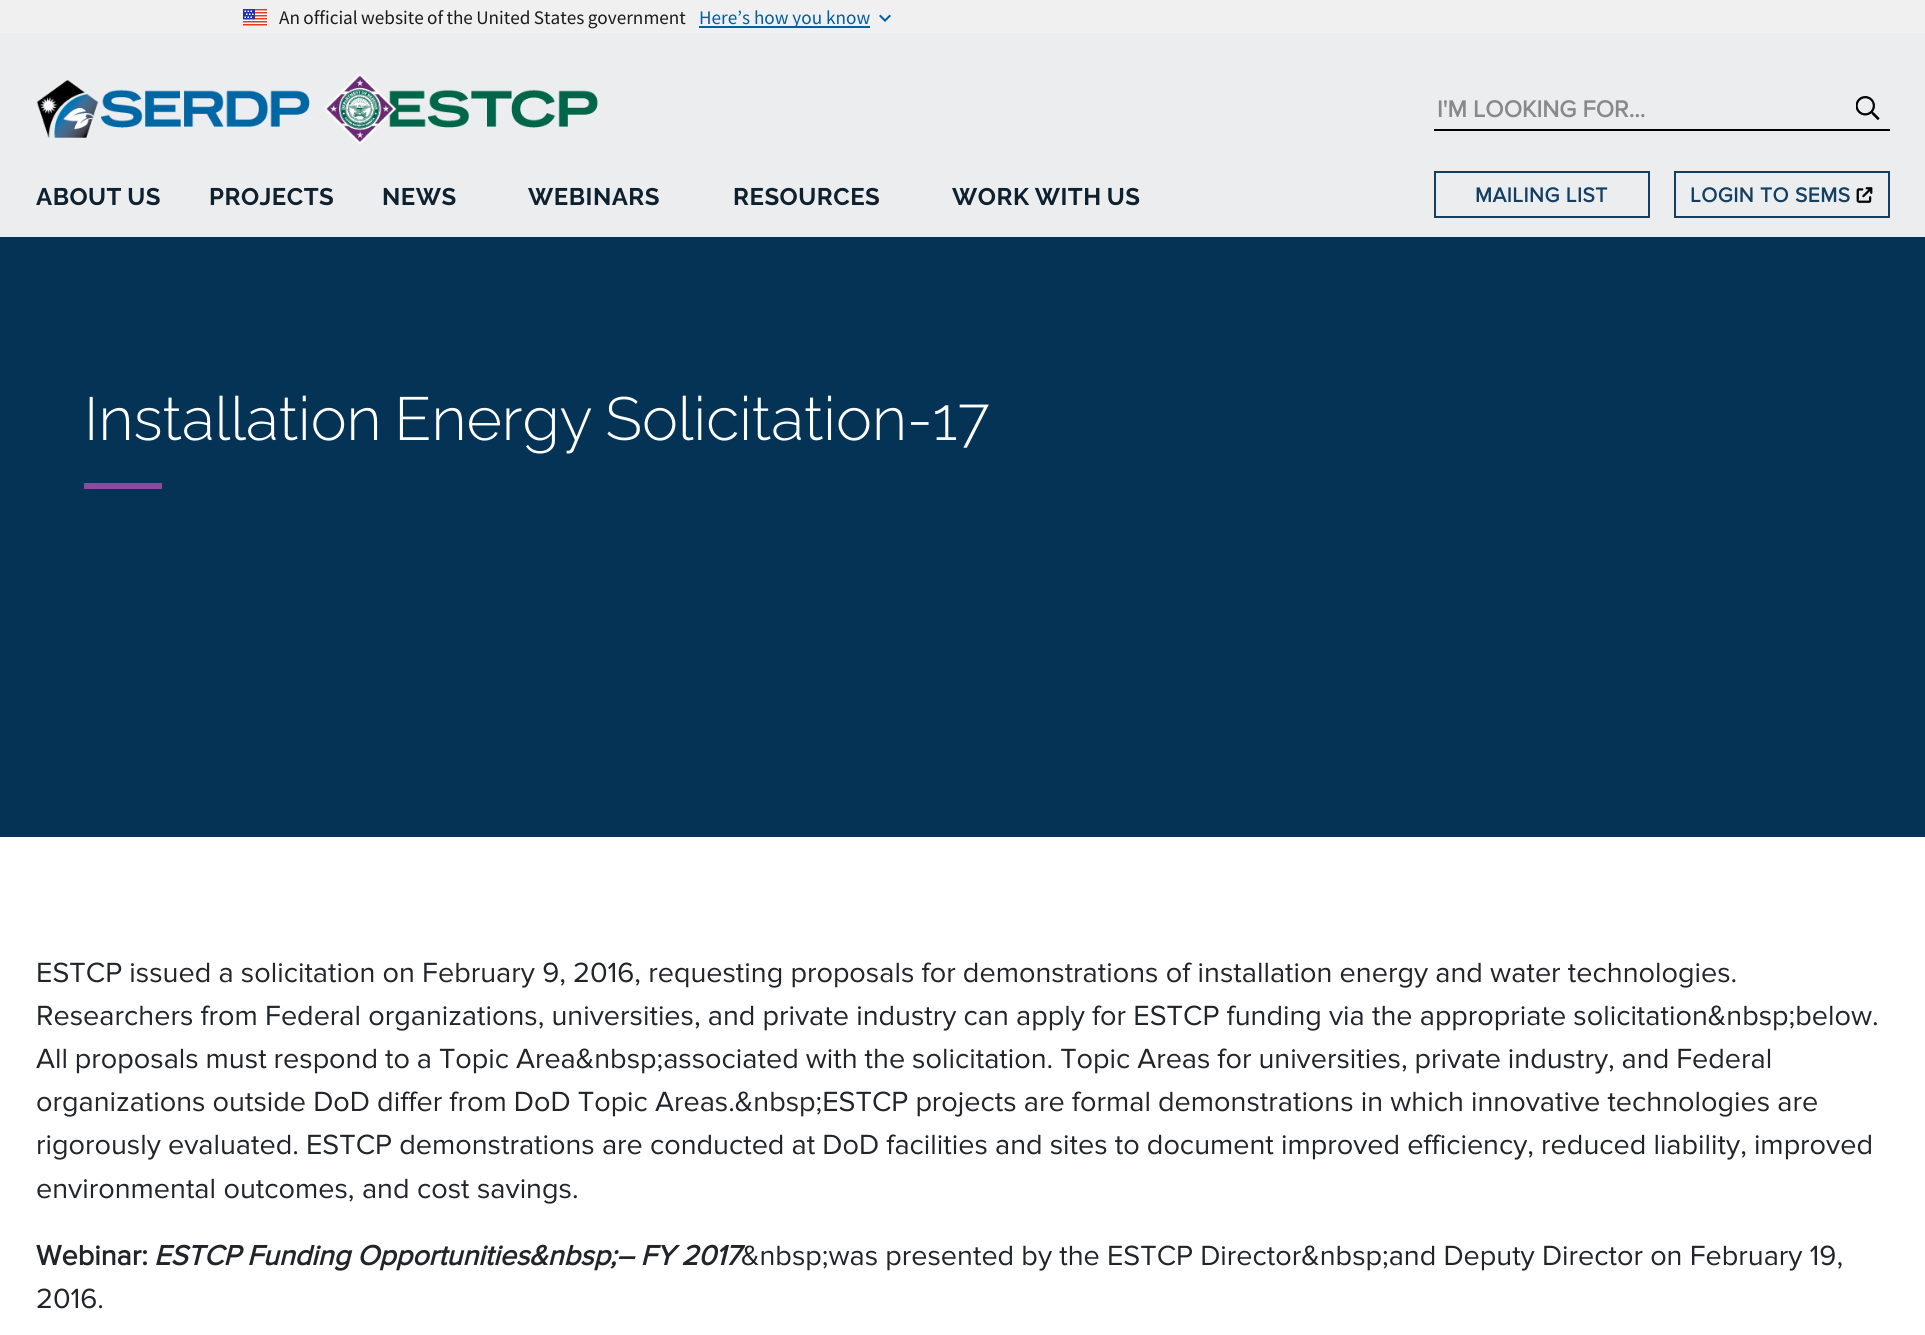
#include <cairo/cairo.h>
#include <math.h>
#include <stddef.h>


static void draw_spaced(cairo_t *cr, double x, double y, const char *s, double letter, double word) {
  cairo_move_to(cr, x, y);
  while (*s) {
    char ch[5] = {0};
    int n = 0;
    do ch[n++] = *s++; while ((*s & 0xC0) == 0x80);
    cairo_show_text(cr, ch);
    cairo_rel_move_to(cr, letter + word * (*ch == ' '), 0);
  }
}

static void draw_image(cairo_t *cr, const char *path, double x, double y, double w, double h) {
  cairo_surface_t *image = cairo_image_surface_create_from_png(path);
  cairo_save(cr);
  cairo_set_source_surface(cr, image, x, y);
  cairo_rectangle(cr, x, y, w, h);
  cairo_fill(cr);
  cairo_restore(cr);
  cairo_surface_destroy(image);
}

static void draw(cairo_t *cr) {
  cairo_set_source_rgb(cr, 1, 1, 1);
  cairo_paint(cr);
  cairo_set_source_rgb(cr, 240 / 255.0, 240 / 255.0, 240 / 255.0);
  cairo_rectangle(cr, 0, 0, 1925, 33);
  cairo_fill(cr);
  draw_image(cr, "images/1.png", 243, 9, 24, 17);
  cairo_set_source_rgb(cr, 0, 94 / 255.0, 162 / 255.0);
  cairo_rectangle(cr, 699, 26, 171, 2);
  cairo_fill(cr);
  draw_image(cr, "images/2.png", 879, 14, 12, 8);
  cairo_set_source_rgb(cr, 235 / 255.0, 237 / 255.0, 239 / 255.0);
  cairo_rectangle(cr, 0, 33, 1925, 204);
  cairo_fill(cr);
  draw_image(cr, "images/3.png", 36, 73, 562, 72);
  cairo_set_source_rgb(cr, 0, 0, 0);
  cairo_rectangle(cr, 1434, 129, 456, 2);
  cairo_fill(cr);
  draw_image(cr, "images/4.png", 1856, 96, 24, 24);
  cairo_rectangle(cr, 1435, 172, 214, 45);
  cairo_set_source_rgb(cr, 19 / 255.0, 63 / 255.0, 98 / 255.0);
  cairo_stroke(cr);
  cairo_rectangle(cr, 1675, 172, 214, 45);
  cairo_stroke(cr);
  draw_image(cr, "images/5.png", 1856, 187, 17, 16);
  cairo_set_source_rgb(cr, 5 / 255.0, 51 / 255.0, 86 / 255.0);
  cairo_rectangle(cr, 0, 237, 1925, 600);
  cairo_fill(cr);
  cairo_set_source_rgb(cr, 141 / 255.0, 72 / 255.0, 160 / 255.0);
  cairo_rectangle(cr, 84, 483, 78, 6);
  cairo_fill(cr);
  cairo_select_font_face(cr, "Source Sans Pro", CAIRO_FONT_SLANT_NORMAL, CAIRO_FONT_WEIGHT_NORMAL);
  cairo_set_font_size(cr, 19.2);
  cairo_set_source_rgb(cr, 27 / 255.0, 27 / 255.0, 27 / 255.0);
  draw_spaced(cr, 279, 24, "An official website of the United States government", 0, -0.5);
  cairo_set_source_rgb(cr, 0, 94 / 255.0, 162 / 255.0);
  cairo_move_to(cr, 699, 24);
  cairo_show_text(cr, "Here’s how you know");
  cairo_select_font_face(cr, "Proxima Nova", CAIRO_FONT_SLANT_NORMAL, CAIRO_FONT_WEIGHT_BOLD);
  cairo_set_font_size(cr, 24);
  cairo_set_source_rgb(cr, 137 / 255.0, 137 / 255.0, 137 / 255.0);
  cairo_move_to(cr, 1437, 117);
  cairo_show_text(cr, "I'M LOOKING FOR...");
  cairo_select_font_face(cr, "Raleway", CAIRO_FONT_SLANT_NORMAL, CAIRO_FONT_WEIGHT_BOLD);
  cairo_set_source_rgb(cr, 15 / 255.0, 33 / 255.0, 47 / 255.0);
  draw_spaced(cr, 36, 205, "ABOUT US", 0.5, -1);
  draw_spaced(cr, 209, 205, "PROJECTS", 0.5, 0);
  draw_spaced(cr, 382, 205, "NEWS", 0.5, 0);
  draw_spaced(cr, 528, 205, "WEBINARS", 0.5, 0);
  draw_spaced(cr, 733, 205, "RESOURCES", 0.5, 0);
  draw_spaced(cr, 952, 205, "WORK WITH US", 0.5, -1);
  cairo_select_font_face(cr, "Proxima Nova", CAIRO_FONT_SLANT_NORMAL, CAIRO_FONT_WEIGHT_BOLD);
  cairo_set_font_size(cr, 21);
  cairo_set_source_rgb(cr, 19 / 255.0, 63 / 255.0, 98 / 255.0);
  draw_spaced(cr, 1475, 202, "MAILING LIST", 0.5, 0);
  draw_spaced(cr, 1690, 202, "LOGIN TO SEMS", 0.5, 0);
  cairo_select_font_face(cr, "Raleway Light", CAIRO_FONT_SLANT_NORMAL, CAIRO_FONT_WEIGHT_NORMAL);
  cairo_set_font_size(cr, 60.75);
  cairo_set_source_rgb(cr, 1, 1, 1);
  draw_spaced(cr, 84, 440, "Installation Energy Solicitation-17", 0, -3);
  cairo_select_font_face(cr, "Proxima Nova", CAIRO_FONT_SLANT_NORMAL, CAIRO_FONT_WEIGHT_NORMAL);
  cairo_set_font_size(cr, 28.8);
  cairo_set_source_rgb(cr, 33 / 255.0, 37 / 255.0, 41 / 255.0);
  draw_spaced(cr, 36, 982, "ESTCP issued a solicitation on February 9, 2016, requesting proposals for demonstrations of installation energy and water technologies.", 0, -0.2);
  draw_spaced(cr, 36, 1025, "Researchers from Federal organizations, universities, and private industry can apply for ESTCP funding via the appropriate solicitation&nbsp;below.", 0, -0.25);
  draw_spaced(cr, 36, 1068, "All proposals must respond to a Topic Area&nbsp;associated with the solicitation. Topic Areas for universities, private industry, and Federal", 0, -0.5);
  draw_spaced(cr, 36, 1111, "organizations outside DoD differ from DoD Topic Areas.&nbsp;ESTCP projects are formal demonstrations in which innovative technologies are", 0, -0.3);
  draw_spaced(cr, 36, 1154, "rigorously evaluated. ESTCP demonstrations are conducted at DoD facilities and sites to document improved efficiency, reduced liability, improved", 0, -0.3);
  cairo_move_to(cr, 36, 1198);
  cairo_show_text(cr, "environmental outcomes, and cost savings.");
  cairo_select_font_face(cr, "Proxima Nova", CAIRO_FONT_SLANT_NORMAL, CAIRO_FONT_WEIGHT_BOLD);
  cairo_move_to(cr, 36, 1265);
  cairo_show_text(cr, "Webinar:");
  cairo_select_font_face(cr, "Proxima Nova", CAIRO_FONT_SLANT_ITALIC, CAIRO_FONT_WEIGHT_BOLD);
  draw_spaced(cr, 154, 1265, "ESTCP Funding Opportunities&nbsp;– FY 2017", 0, -0.5);
  cairo_select_font_face(cr, "Proxima Nova", CAIRO_FONT_SLANT_NORMAL, CAIRO_FONT_WEIGHT_NORMAL);
  draw_spaced(cr, 741, 1265, "&nbsp;was presented by the ESTCP Director&nbsp;and Deputy Director on February 19,", 0, -0.25);
  cairo_move_to(cr, 36, 1308);
  cairo_show_text(cr, "2016.");
}

int main(void) {
  cairo_surface_t *surface = cairo_image_surface_create(CAIRO_FORMAT_RGB24, 1925, 1335);
  cairo_t *cr = cairo_create(surface);
  cairo_font_options_t *options = cairo_font_options_create();
  cairo_font_options_set_hint_metrics(options, CAIRO_HINT_METRICS_OFF);
  cairo_font_options_set_hint_style(options, CAIRO_HINT_STYLE_NONE);
  cairo_set_font_options(cr, options);
  cairo_set_miter_limit(cr, 4);
  draw(cr);
  cairo_surface_write_to_png(surface, "out.png");
  cairo_font_options_destroy(options);
  cairo_destroy(cr);
  cairo_surface_destroy(surface);
  return 0;
}
